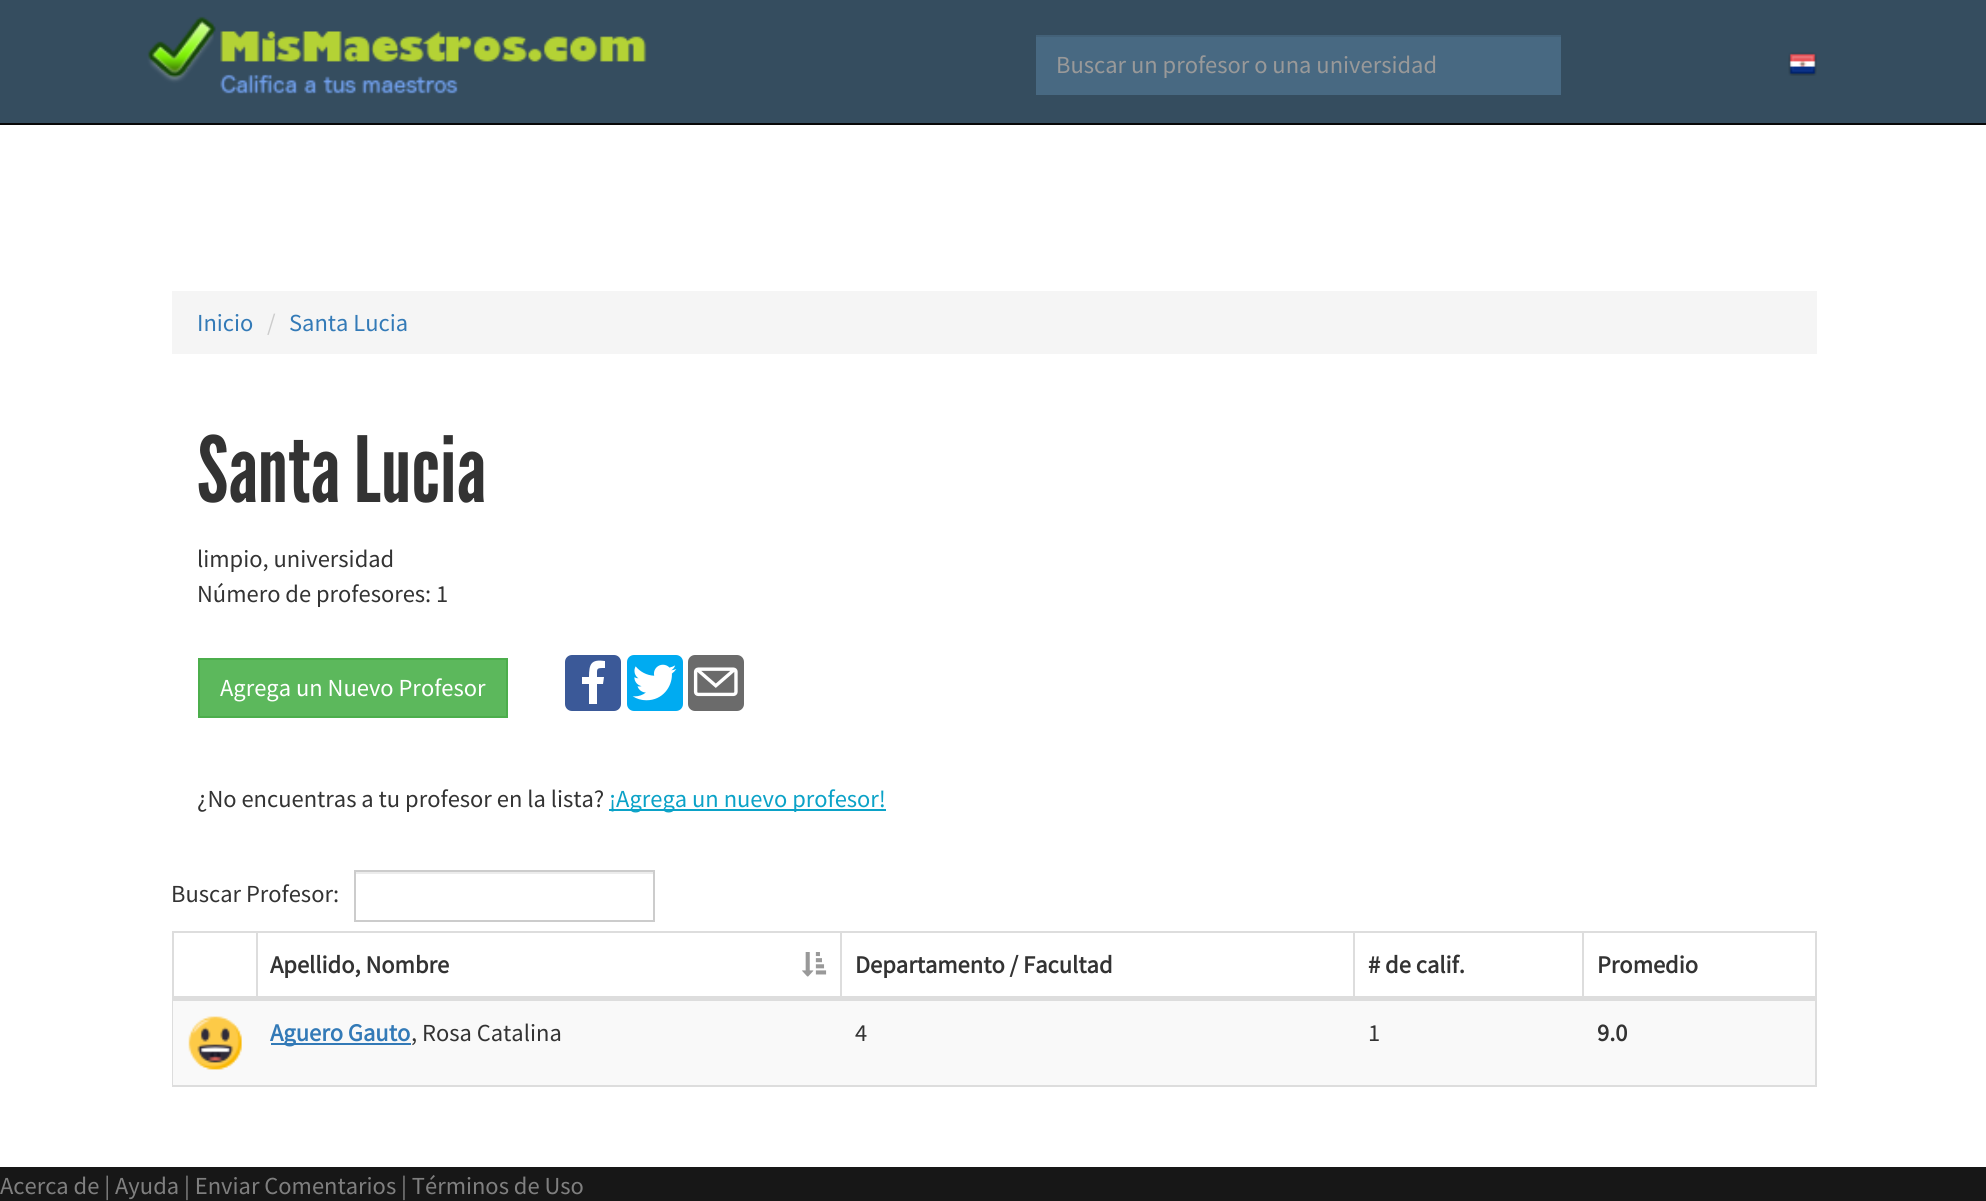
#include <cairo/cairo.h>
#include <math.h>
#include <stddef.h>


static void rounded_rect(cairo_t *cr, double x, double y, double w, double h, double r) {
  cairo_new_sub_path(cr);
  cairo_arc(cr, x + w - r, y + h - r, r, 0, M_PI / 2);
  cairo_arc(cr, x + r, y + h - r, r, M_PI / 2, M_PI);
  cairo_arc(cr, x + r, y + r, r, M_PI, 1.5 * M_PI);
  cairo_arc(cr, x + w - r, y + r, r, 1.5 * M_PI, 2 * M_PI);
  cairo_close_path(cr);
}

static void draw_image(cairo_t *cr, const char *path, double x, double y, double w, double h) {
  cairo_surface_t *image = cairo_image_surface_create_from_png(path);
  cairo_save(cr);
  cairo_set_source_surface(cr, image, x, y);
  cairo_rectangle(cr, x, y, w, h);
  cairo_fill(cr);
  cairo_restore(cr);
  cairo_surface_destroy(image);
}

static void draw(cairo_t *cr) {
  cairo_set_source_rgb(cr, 1, 1, 1);
  cairo_paint(cr);
  cairo_set_source_rgb(cr, 53 / 255.0, 77 / 255.0, 95 / 255.0);
  cairo_rectangle(cr, 0, 0, 1986, 123);
  cairo_fill(cr);
  cairo_set_source_rgb(cr, 8 / 255.0, 8 / 255.0, 8 / 255.0);
  cairo_rectangle(cr, 0, 123, 1986, 2);
  cairo_fill(cr);
  draw_image(cr, "images/1.png", 147, 16, 500, 78);
  cairo_set_source_rgb(cr, 72 / 255.0, 105 / 255.0, 130 / 255.0);
  cairo_rectangle(cr, 1036, 37, 525, 58);
  cairo_fill(cr);
  cairo_set_source_rgb(cr, 67 / 255.0, 97 / 255.0, 120 / 255.0);
  cairo_rectangle(cr, 1036, 35, 525, 2);
  cairo_fill(cr);
  draw_image(cr, "images/2.png", 1788, 52, 29, 24);
  cairo_set_source_rgb(cr, 245 / 255.0, 245 / 255.0, 245 / 255.0);
  cairo_rectangle(cr, 172, 291, 1645, 63);
  cairo_fill(cr);
  cairo_set_source_rgb(cr, 92 / 255.0, 184 / 255.0, 92 / 255.0);
  cairo_rectangle(cr, 199, 659, 308, 58);
  cairo_fill_preserve(cr);
  cairo_set_source_rgb(cr, 76 / 255.0, 174 / 255.0, 76 / 255.0);
  cairo_stroke(cr);
  cairo_set_source_rgb(cr, 59 / 255.0, 89 / 255.0, 152 / 255.0);
  rounded_rect(cr, 565, 655, 56, 56, 7);
  cairo_fill(cr);
  draw_image(cr, "images/3.png", 627, 655, 56, 56);
  draw_image(cr, "images/4.png", 688, 655, 56, 56);
  cairo_set_source_rgb(cr, 1, 1, 1);
  cairo_new_path(cr);
  cairo_move_to(cr, 597, 704);
  cairo_line_to(cr, 597, 684);
  cairo_line_to(cr, 603, 684);
  cairo_line_to(cr, 604, 677);
  cairo_line_to(cr, 597, 677);
  cairo_curve_to(cr, 597, 668, 596, 668, 605, 668);
  cairo_line_to(cr, 605, 661);
  cairo_curve_to(cr, 591, 659, 589, 664, 589, 677);
  cairo_line_to(cr, 582, 677);
  cairo_line_to(cr, 582, 684);
  cairo_line_to(cr, 589, 684);
  cairo_line_to(cr, 589, 704);
  cairo_close_path(cr);
  cairo_fill(cr);
  cairo_set_source_rgb(cr, 11 / 255.0, 162 / 255.0, 199 / 255.0);
  cairo_rectangle(cr, 609, 809, 277, 2);
  cairo_fill(cr);
  cairo_set_source_rgb(cr, 236 / 255.0, 236 / 255.0, 236 / 255.0);
  cairo_rectangle(cr, 355, 872, 298, 2);
  cairo_fill(cr);
  cairo_rectangle(cr, 355, 871, 299, 50);
  cairo_set_source_rgb(cr, 204 / 255.0, 204 / 255.0, 204 / 255.0);
  cairo_stroke(cr);
  cairo_rectangle(cr, 173, 932, 1643, 154);
  cairo_set_source_rgb(cr, 221 / 255.0, 221 / 255.0, 221 / 255.0);
  cairo_stroke(cr);
  cairo_rectangle(cr, 256, 933, 2, 66);
  cairo_fill(cr);
  cairo_rectangle(cr, 173, 996, 84, 5);
  cairo_fill(cr);
  cairo_rectangle(cr, 840, 933, 2, 66);
  cairo_fill(cr);
  cairo_rectangle(cr, 257, 996, 585, 4);
  cairo_fill(cr);
  draw_image(cr, "images/5.png", 802, 952, 25, 25);
  cairo_rectangle(cr, 1353, 933, 2, 66);
  cairo_fill(cr);
  cairo_rectangle(cr, 842, 996, 513, 5);
  cairo_fill(cr);
  cairo_rectangle(cr, 1582, 933, 2, 66);
  cairo_fill(cr);
  cairo_rectangle(cr, 1355, 996, 460, 3);
  cairo_fill(cr);
  cairo_set_source_rgb(cr, 249 / 255.0, 249 / 255.0, 249 / 255.0);
  cairo_rectangle(cr, 173, 1001, 1642, 84);
  cairo_fill(cr);
  draw_image(cr, "images/6.png", 188, 1016, 54, 54);
  cairo_set_source_rgb(cr, 221 / 255.0, 221 / 255.0, 221 / 255.0);
  cairo_rectangle(cr, 257, 1000, 585, 1);
  cairo_fill(cr);
  cairo_set_source_rgb(cr, 51 / 255.0, 122 / 255.0, 183 / 255.0);
  cairo_rectangle(cr, 271, 1043, 140, 2);
  cairo_fill(cr);
  cairo_set_source_rgb(cr, 221 / 255.0, 221 / 255.0, 221 / 255.0);
  cairo_rectangle(cr, 1355, 999, 460, 2);
  cairo_fill(cr);
  cairo_set_source_rgb(cr, 23 / 255.0, 23 / 255.0, 23 / 255.0);
  cairo_rectangle(cr, 0, 1167, 1986, 34);
  cairo_fill(cr);
  cairo_select_font_face(cr, "Source Sans Pro", CAIRO_FONT_SLANT_NORMAL, CAIRO_FONT_WEIGHT_NORMAL);
  cairo_set_font_size(cr, 24.5);
  cairo_set_source_rgb(cr, 153 / 255.0, 153 / 255.0, 153 / 255.0);
  cairo_move_to(cr, 1056, 73);
  cairo_show_text(cr, "Buscar un profesor o una universidad");
  cairo_set_source_rgb(cr, 51 / 255.0, 122 / 255.0, 183 / 255.0);
  cairo_move_to(cr, 197, 331);
  cairo_show_text(cr, "Inicio");
  cairo_set_source_rgb(cr, 204 / 255.0, 204 / 255.0, 204 / 255.0);
  cairo_move_to(cr, 267, 331);
  cairo_show_text(cr, "/");
  cairo_set_source_rgb(cr, 51 / 255.0, 122 / 255.0, 183 / 255.0);
  cairo_move_to(cr, 289, 331);
  cairo_show_text(cr, "Santa Lucia");
  cairo_select_font_face(cr, "League Gothic", CAIRO_FONT_SLANT_NORMAL, CAIRO_FONT_WEIGHT_NORMAL);
  cairo_set_font_size(cr, 91);
  cairo_set_source_rgb(cr, 51 / 255.0, 51 / 255.0, 51 / 255.0);
  cairo_move_to(cr, 197, 502);
  cairo_show_text(cr, "Santa Lucia");
  cairo_select_font_face(cr, "Source Sans Pro", CAIRO_FONT_SLANT_NORMAL, CAIRO_FONT_WEIGHT_NORMAL);
  cairo_set_font_size(cr, 24.5);
  cairo_move_to(cr, 197, 567);
  cairo_show_text(cr, "limpio, universidad");
  cairo_move_to(cr, 197, 602);
  cairo_show_text(cr, "Número de profesores: 1");
  cairo_set_source_rgb(cr, 1, 1, 1);
  cairo_move_to(cr, 220, 696);
  cairo_show_text(cr, "Agrega un Nuevo Profesor");
  cairo_set_source_rgb(cr, 51 / 255.0, 51 / 255.0, 51 / 255.0);
  cairo_move_to(cr, 197, 807);
  cairo_show_text(cr, "¿No encuentras a tu profesor en la lista?");
  cairo_set_source_rgb(cr, 11 / 255.0, 162 / 255.0, 199 / 255.0);
  cairo_move_to(cr, 609, 807);
  cairo_show_text(cr, "¡Agrega un nuevo profesor!");
  cairo_set_source_rgb(cr, 51 / 255.0, 51 / 255.0, 51 / 255.0);
  cairo_move_to(cr, 171, 902);
  cairo_show_text(cr, "Buscar Profesor:");
  cairo_select_font_face(cr, "Source Sans Pro", CAIRO_FONT_SLANT_NORMAL, CAIRO_FONT_WEIGHT_BOLD);
  cairo_move_to(cr, 270, 973);
  cairo_show_text(cr, "Apellido, Nombre");
  cairo_move_to(cr, 855, 973);
  cairo_show_text(cr, "Departamento / Facultad");
  cairo_move_to(cr, 1368, 973);
  cairo_show_text(cr, "# de calif.");
  cairo_move_to(cr, 1597, 973);
  cairo_show_text(cr, "Promedio");
  cairo_set_source_rgb(cr, 51 / 255.0, 122 / 255.0, 183 / 255.0);
  cairo_move_to(cr, 270, 1041);
  cairo_show_text(cr, "Aguero Gauto");
  cairo_select_font_face(cr, "Source Sans Pro", CAIRO_FONT_SLANT_NORMAL, CAIRO_FONT_WEIGHT_NORMAL);
  cairo_set_source_rgb(cr, 51 / 255.0, 51 / 255.0, 51 / 255.0);
  cairo_move_to(cr, 411, 1041);
  cairo_show_text(cr, ", Rosa Catalina");
  cairo_move_to(cr, 855, 1041);
  cairo_show_text(cr, "4");
  cairo_move_to(cr, 1368, 1041);
  cairo_show_text(cr, "1");
  cairo_select_font_face(cr, "Source Sans Pro", CAIRO_FONT_SLANT_NORMAL, CAIRO_FONT_WEIGHT_BOLD);
  cairo_move_to(cr, 1597, 1041);
  cairo_show_text(cr, "9.0");
  cairo_select_font_face(cr, "Source Sans Pro", CAIRO_FONT_SLANT_NORMAL, CAIRO_FONT_WEIGHT_NORMAL);
  cairo_set_source_rgb(cr, 127 / 255.0, 127 / 255.0, 127 / 255.0);
  cairo_move_to(cr, 0, 1194);
  cairo_show_text(cr, "Acerca de | Ayuda | Enviar Comentarios | Términos de Uso");
}

int main(void) {
  cairo_surface_t *surface = cairo_image_surface_create(CAIRO_FORMAT_RGB24, 1986, 1201);
  cairo_t *cr = cairo_create(surface);
  cairo_font_options_t *options = cairo_font_options_create();
  cairo_font_options_set_hint_metrics(options, CAIRO_HINT_METRICS_OFF);
  cairo_font_options_set_hint_style(options, CAIRO_HINT_STYLE_NONE);
  cairo_set_font_options(cr, options);
  cairo_set_miter_limit(cr, 4);
  draw(cr);
  cairo_surface_write_to_png(surface, "out.png");
  cairo_font_options_destroy(options);
  cairo_destroy(cr);
  cairo_surface_destroy(surface);
  return 0;
}
